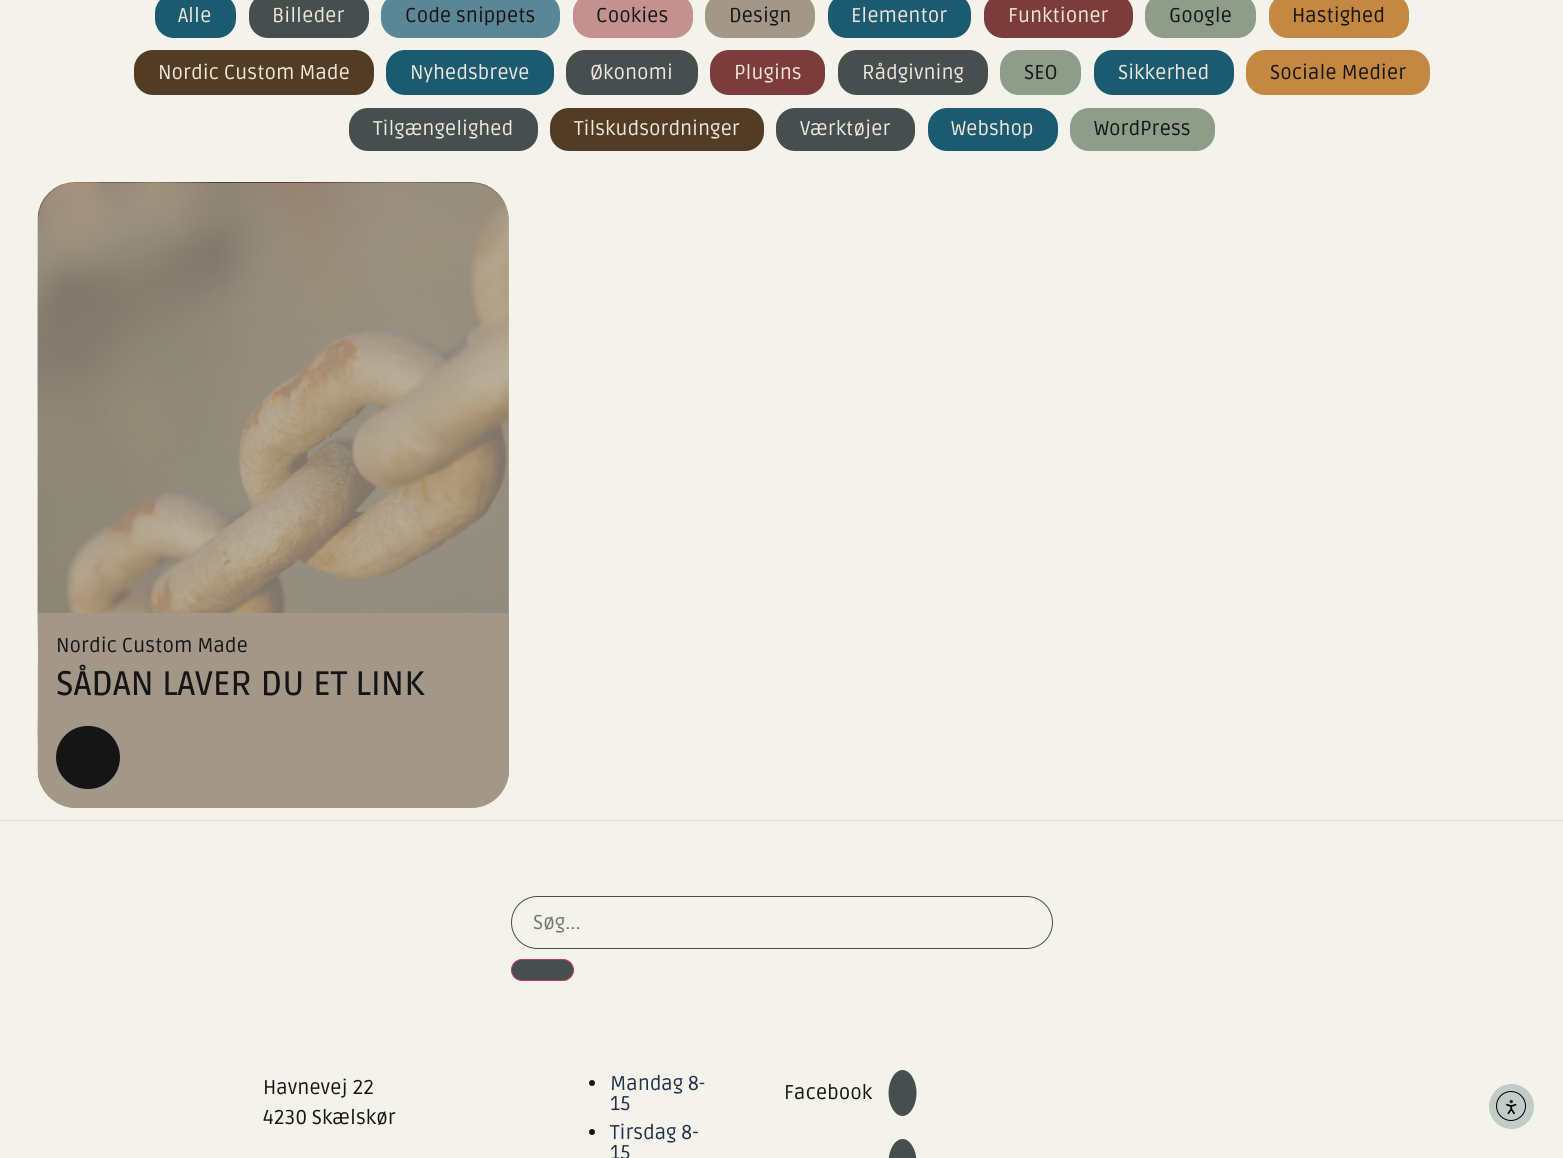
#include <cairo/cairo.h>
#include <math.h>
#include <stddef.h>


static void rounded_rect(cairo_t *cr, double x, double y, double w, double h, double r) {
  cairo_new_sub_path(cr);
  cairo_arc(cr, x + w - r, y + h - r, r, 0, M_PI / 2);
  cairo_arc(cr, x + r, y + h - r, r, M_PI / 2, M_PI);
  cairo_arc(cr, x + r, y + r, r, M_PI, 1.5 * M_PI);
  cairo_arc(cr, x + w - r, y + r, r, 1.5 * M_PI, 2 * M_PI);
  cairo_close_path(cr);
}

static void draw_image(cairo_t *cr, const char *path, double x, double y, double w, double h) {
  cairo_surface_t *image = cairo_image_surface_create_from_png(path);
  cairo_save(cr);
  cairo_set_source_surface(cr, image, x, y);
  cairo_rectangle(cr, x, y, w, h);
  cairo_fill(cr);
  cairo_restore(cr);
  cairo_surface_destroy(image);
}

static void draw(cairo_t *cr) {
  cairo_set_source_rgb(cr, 243 / 255.0, 243 / 255.0, 235 / 255.0);
  cairo_paint(cr);
  cairo_set_source_rgb(cr, 27 / 255.0, 90 / 255.0, 111 / 255.0);
  rounded_rect(cr, 155, -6, 81, 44, 19);
  cairo_fill(cr);
  cairo_set_source_rgb(cr, 70 / 255.0, 78 / 255.0, 78 / 255.0);
  rounded_rect(cr, 249, -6, 120, 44, 19);
  cairo_fill(cr);
  cairo_set_source_rgb(cr, 91 / 255.0, 134 / 255.0, 149 / 255.0);
  rounded_rect(cr, 381, -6, 179, 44, 19);
  cairo_fill(cr);
  cairo_set_source_rgb(cr, 195 / 255.0, 145 / 255.0, 142 / 255.0);
  rounded_rect(cr, 573, -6, 120, 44, 19);
  cairo_fill(cr);
  cairo_set_source_rgb(cr, 163 / 255.0, 152 / 255.0, 136 / 255.0);
  rounded_rect(cr, 705, -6, 110, 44, 19);
  cairo_fill(cr);
  cairo_set_source_rgb(cr, 27 / 255.0, 90 / 255.0, 111 / 255.0);
  rounded_rect(cr, 828, -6, 143, 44, 19);
  cairo_fill(cr);
  cairo_set_source_rgb(cr, 125 / 255.0, 60 / 255.0, 60 / 255.0);
  rounded_rect(cr, 984, -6, 149, 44, 19);
  cairo_fill(cr);
  cairo_set_source_rgb(cr, 142 / 255.0, 157 / 255.0, 138 / 255.0);
  rounded_rect(cr, 1145, -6, 111, 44, 19);
  cairo_fill(cr);
  cairo_set_source_rgb(cr, 197 / 255.0, 136 / 255.0, 67 / 255.0);
  rounded_rect(cr, 1269, -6, 140, 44, 19);
  cairo_fill(cr);
  cairo_set_source_rgb(cr, 82 / 255.0, 60 / 255.0, 36 / 255.0);
  rounded_rect(cr, 134, 50, 240, 45, 19);
  cairo_fill(cr);
  cairo_set_source_rgb(cr, 27 / 255.0, 90 / 255.0, 111 / 255.0);
  rounded_rect(cr, 386, 50, 168, 45, 19);
  cairo_fill(cr);
  cairo_set_source_rgb(cr, 70 / 255.0, 78 / 255.0, 78 / 255.0);
  rounded_rect(cr, 566, 50, 132, 45, 19);
  cairo_fill(cr);
  cairo_set_source_rgb(cr, 125 / 255.0, 60 / 255.0, 60 / 255.0);
  rounded_rect(cr, 710, 50, 115, 45, 19);
  cairo_fill(cr);
  cairo_set_source_rgb(cr, 70 / 255.0, 78 / 255.0, 78 / 255.0);
  rounded_rect(cr, 838, 50, 150, 45, 19);
  cairo_fill(cr);
  cairo_set_source_rgb(cr, 142 / 255.0, 157 / 255.0, 138 / 255.0);
  rounded_rect(cr, 1000, 50, 81, 45, 19);
  cairo_fill(cr);
  cairo_set_source_rgb(cr, 27 / 255.0, 90 / 255.0, 111 / 255.0);
  rounded_rect(cr, 1094, 50, 140, 45, 19);
  cairo_fill(cr);
  cairo_set_source_rgb(cr, 197 / 255.0, 136 / 255.0, 67 / 255.0);
  rounded_rect(cr, 1246, 50, 184, 45, 19);
  cairo_fill(cr);
  cairo_set_source_rgb(cr, 70 / 255.0, 78 / 255.0, 78 / 255.0);
  rounded_rect(cr, 349, 108, 189, 43, 19);
  cairo_fill(cr);
  cairo_set_source_rgb(cr, 82 / 255.0, 60 / 255.0, 36 / 255.0);
  rounded_rect(cr, 550, 108, 214, 43, 19);
  cairo_fill(cr);
  cairo_set_source_rgb(cr, 70 / 255.0, 78 / 255.0, 78 / 255.0);
  rounded_rect(cr, 776, 108, 139, 43, 19);
  cairo_fill(cr);
  cairo_set_source_rgb(cr, 27 / 255.0, 90 / 255.0, 111 / 255.0);
  rounded_rect(cr, 928, 108, 130, 43, 19);
  cairo_fill(cr);
  cairo_set_source_rgb(cr, 142 / 255.0, 157 / 255.0, 138 / 255.0);
  rounded_rect(cr, 1070, 108, 145, 43, 19);
  cairo_fill(cr);
  draw_image(cr, "images/1.png", 37, 182, 472, 625);
  cairo_set_source_rgba(cr, 163 / 255.0, 152 / 255.0, 136 / 255.0, 0.77);
  rounded_rect(cr, 38, 183, 471, 625, 38);
  cairo_fill(cr);
  cairo_set_source_rgb(cr, 163 / 255.0, 152 / 255.0, 136 / 255.0);
  cairo_new_path(cr);
  cairo_move_to(cr, 38, 613);
  cairo_line_to(cr, 509, 613);
  cairo_line_to(cr, 509, 770);
  cairo_curve_to(cr, 509, 791, 492, 808, 471, 808);
  cairo_line_to(cr, 76, 808);
  cairo_curve_to(cr, 55, 808, 38, 791, 38, 770);
  cairo_close_path(cr);
  cairo_fill(cr);
  cairo_set_source_rgb(cr, 21 / 255.0, 21 / 255.0, 21 / 255.0);
  rounded_rect(cr, 56, 726, 64, 63, 31.5);
  cairo_fill(cr);
  cairo_set_source_rgb(cr, 224 / 255.0, 224 / 255.0, 209 / 255.0);
  cairo_rectangle(cr, 0, 820, 1563, 1);
  cairo_fill(cr);
  rounded_rect(cr, 511.5, 896.5, 541, 52, 26);
  cairo_set_source_rgb(cr, 70 / 255.0, 78 / 255.0, 78 / 255.0);
  cairo_set_line_width(cr, 1);
  cairo_stroke(cr);
  rounded_rect(cr, 511.5, 959.5, 62, 21, 10.5);
  cairo_fill_preserve(cr);
  cairo_set_source_rgb(cr, 204 / 255.0, 51 / 255.0, 102 / 255.0);
  cairo_stroke(cr);
  cairo_set_source_rgb(cr, 21 / 255.0, 21 / 255.0, 21 / 255.0);
  cairo_arc(cr, 592, 1083, 3, 0, 2 * M_PI);
  cairo_fill(cr);
  cairo_arc(cr, 592, 1132, 3, 0, 2 * M_PI);
  cairo_fill(cr);
  cairo_set_source_rgb(cr, 70 / 255.0, 78 / 255.0, 78 / 255.0);
  cairo_new_path(cr);
  cairo_move_to(cr, 902.5, 1070);
  cairo_curve_to(cr, 910, 1070, 916.5, 1080.5, 916.5, 1093);
  cairo_curve_to(cr, 916.5, 1105.5, 910, 1116, 902.5, 1116);
  cairo_curve_to(cr, 895, 1116, 888.5, 1105.5, 888.5, 1093);
  cairo_curve_to(cr, 888.5, 1080.5, 895, 1070, 902.5, 1070);
  cairo_close_path(cr);
  cairo_fill(cr);
  cairo_new_path(cr);
  cairo_move_to(cr, 902.5, 1139);
  cairo_curve_to(cr, 910, 1139, 916.5, 1149.5, 916.5, 1162);
  cairo_curve_to(cr, 916.5, 1174.5, 910, 1185, 902.5, 1185);
  cairo_curve_to(cr, 895, 1185, 888.5, 1174.5, 888.5, 1162);
  cairo_curve_to(cr, 888.5, 1149.5, 895, 1139, 902.5, 1139);
  cairo_close_path(cr);
  cairo_fill(cr);
  cairo_set_source_rgb(cr, 193 / 255.0, 204 / 255.0, 198 / 255.0);
  cairo_arc(cr, 1511.5, 1106.5, 22.5, 0, 2 * M_PI);
  cairo_fill(cr);
  cairo_arc(cr, 1511, 1106, 14.5, 0, 2 * M_PI);
  cairo_set_source_rgb(cr, 0, 0, 0);
  cairo_stroke(cr);
  draw_image(cr, "images/2.png", 1506, 1100, 11, 15);
  cairo_select_font_face(cr, "Ruda", CAIRO_FONT_SLANT_NORMAL, CAIRO_FONT_WEIGHT_NORMAL);
  cairo_set_font_size(cr, 20);
  cairo_set_source_rgb(cr, 238 / 255.0, 231 / 255.0, 220 / 255.0);
  cairo_move_to(cr, 178, 22);
  cairo_show_text(cr, "Alle");
  cairo_move_to(cr, 272, 22);
  cairo_show_text(cr, "Billeder");
  cairo_set_source_rgb(cr, 21 / 255.0, 21 / 255.0, 21 / 255.0);
  cairo_move_to(cr, 405, 22);
  cairo_show_text(cr, "Code snippets");
  cairo_move_to(cr, 596, 22);
  cairo_show_text(cr, "Cookies");
  cairo_move_to(cr, 729, 22);
  cairo_show_text(cr, "Design");
  cairo_set_source_rgb(cr, 238 / 255.0, 231 / 255.0, 220 / 255.0);
  cairo_move_to(cr, 851, 22);
  cairo_show_text(cr, "Elementor");
  cairo_move_to(cr, 1008, 22);
  cairo_show_text(cr, "Funktioner");
  cairo_set_source_rgb(cr, 21 / 255.0, 21 / 255.0, 21 / 255.0);
  cairo_move_to(cr, 1169, 22);
  cairo_show_text(cr, "Google");
  cairo_move_to(cr, 1292, 22);
  cairo_show_text(cr, "Hastighed");
  cairo_set_source_rgb(cr, 238 / 255.0, 231 / 255.0, 220 / 255.0);
  cairo_move_to(cr, 158, 79);
  cairo_show_text(cr, "Nordic Custom Made");
  cairo_move_to(cr, 410, 79);
  cairo_show_text(cr, "Nyhedsbreve");
  cairo_move_to(cr, 590, 79);
  cairo_show_text(cr, "Økonomi");
  cairo_move_to(cr, 734, 79);
  cairo_show_text(cr, "Plugins");
  cairo_move_to(cr, 862, 79);
  cairo_show_text(cr, "Rådgivning");
  cairo_set_source_rgb(cr, 21 / 255.0, 21 / 255.0, 21 / 255.0);
  cairo_move_to(cr, 1024, 79);
  cairo_show_text(cr, "SEO");
  cairo_set_source_rgb(cr, 238 / 255.0, 231 / 255.0, 220 / 255.0);
  cairo_move_to(cr, 1118, 79);
  cairo_show_text(cr, "Sikkerhed");
  cairo_set_source_rgb(cr, 21 / 255.0, 21 / 255.0, 21 / 255.0);
  cairo_move_to(cr, 1270, 79);
  cairo_show_text(cr, "Sociale Medier");
  cairo_set_source_rgb(cr, 238 / 255.0, 231 / 255.0, 220 / 255.0);
  cairo_move_to(cr, 373, 135);
  cairo_show_text(cr, "Tilgængelighed");
  cairo_move_to(cr, 574, 135);
  cairo_show_text(cr, "Tilskudsordninger");
  cairo_move_to(cr, 800, 135);
  cairo_show_text(cr, "Værktøjer");
  cairo_move_to(cr, 951, 135);
  cairo_show_text(cr, "Webshop");
  cairo_set_source_rgb(cr, 21 / 255.0, 21 / 255.0, 21 / 255.0);
  cairo_move_to(cr, 1094, 135);
  cairo_show_text(cr, "WordPress");
  cairo_move_to(cr, 56, 652);
  cairo_show_text(cr, "Nordic Custom Made");
  cairo_select_font_face(cr, "Ruda Medium", CAIRO_FONT_SLANT_NORMAL, CAIRO_FONT_WEIGHT_NORMAL);
  cairo_set_font_size(cr, 34);
  cairo_move_to(cr, 56, 695);
  cairo_show_text(cr, "SÅDAN LAVER DU ET LINK");
  cairo_select_font_face(cr, "Ruda", CAIRO_FONT_SLANT_NORMAL, CAIRO_FONT_WEIGHT_NORMAL);
  cairo_set_font_size(cr, 20);
  cairo_set_source_rgb(cr, 117 / 255.0, 117 / 255.0, 117 / 255.0);
  cairo_move_to(cr, 533, 929);
  cairo_show_text(cr, "Søg...");
  cairo_set_source_rgb(cr, 21 / 255.0, 21 / 255.0, 21 / 255.0);
  cairo_move_to(cr, 263, 1094);
  cairo_show_text(cr, "Havnevej 22");
  cairo_move_to(cr, 263, 1124);
  cairo_show_text(cr, "4230 Skælskør");
  cairo_set_source_rgb(cr, 35 / 255.0, 49 / 255.0, 71 / 255.0);
  cairo_move_to(cr, 610, 1090);
  cairo_show_text(cr, "Mandag 8-");
  cairo_move_to(cr, 610, 1110);
  cairo_show_text(cr, "15");
  cairo_move_to(cr, 610, 1139);
  cairo_show_text(cr, "Tirsdag 8-");
  cairo_move_to(cr, 610, 1159);
  cairo_show_text(cr, "15");
  cairo_set_source_rgb(cr, 21 / 255.0, 21 / 255.0, 21 / 255.0);
  cairo_move_to(cr, 784, 1099);
  cairo_show_text(cr, "Facebook");
}

int main(void) {
  cairo_surface_t *surface = cairo_image_surface_create(CAIRO_FORMAT_RGB24, 1563, 1158);
  cairo_t *cr = cairo_create(surface);
  cairo_font_options_t *options = cairo_font_options_create();
  cairo_font_options_set_hint_metrics(options, CAIRO_HINT_METRICS_OFF);
  cairo_font_options_set_hint_style(options, CAIRO_HINT_STYLE_NONE);
  cairo_set_font_options(cr, options);
  cairo_set_miter_limit(cr, 4);
  draw(cr);
  cairo_surface_write_to_png(surface, "out.png");
  cairo_font_options_destroy(options);
  cairo_destroy(cr);
  cairo_surface_destroy(surface);
  return 0;
}
